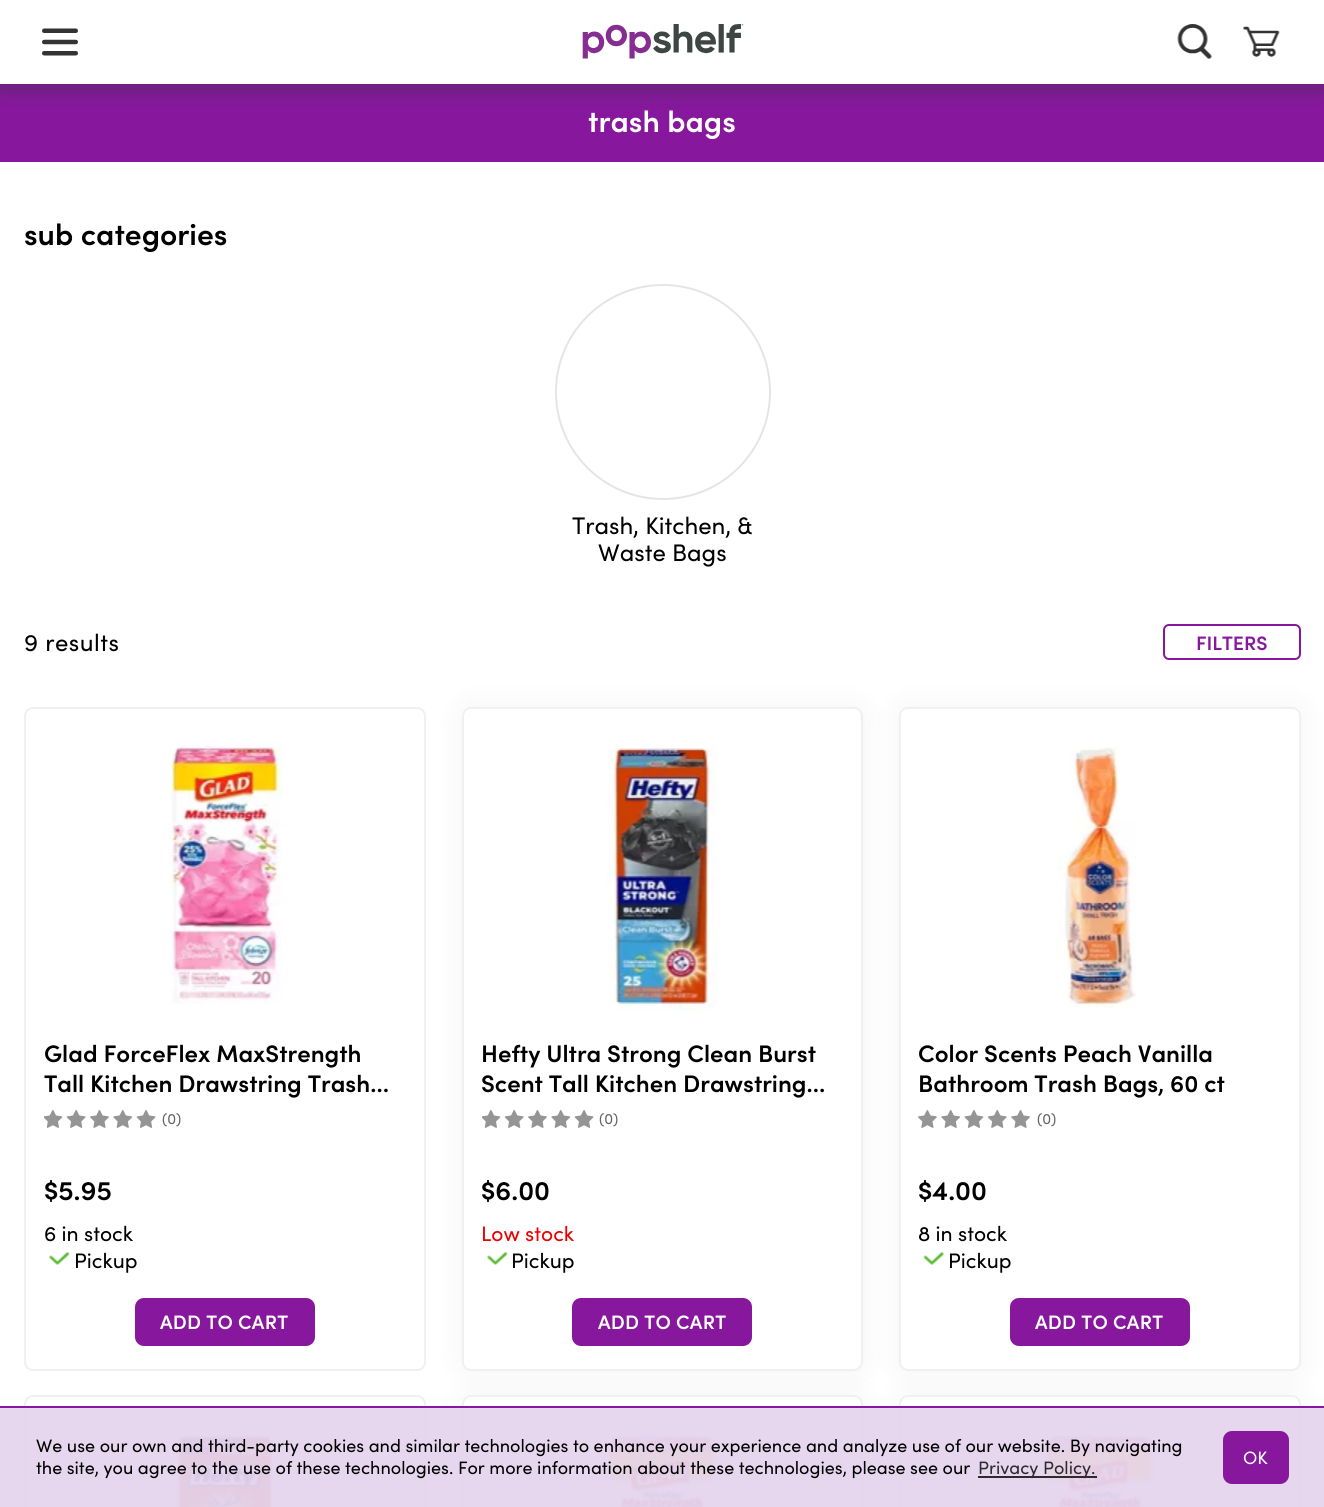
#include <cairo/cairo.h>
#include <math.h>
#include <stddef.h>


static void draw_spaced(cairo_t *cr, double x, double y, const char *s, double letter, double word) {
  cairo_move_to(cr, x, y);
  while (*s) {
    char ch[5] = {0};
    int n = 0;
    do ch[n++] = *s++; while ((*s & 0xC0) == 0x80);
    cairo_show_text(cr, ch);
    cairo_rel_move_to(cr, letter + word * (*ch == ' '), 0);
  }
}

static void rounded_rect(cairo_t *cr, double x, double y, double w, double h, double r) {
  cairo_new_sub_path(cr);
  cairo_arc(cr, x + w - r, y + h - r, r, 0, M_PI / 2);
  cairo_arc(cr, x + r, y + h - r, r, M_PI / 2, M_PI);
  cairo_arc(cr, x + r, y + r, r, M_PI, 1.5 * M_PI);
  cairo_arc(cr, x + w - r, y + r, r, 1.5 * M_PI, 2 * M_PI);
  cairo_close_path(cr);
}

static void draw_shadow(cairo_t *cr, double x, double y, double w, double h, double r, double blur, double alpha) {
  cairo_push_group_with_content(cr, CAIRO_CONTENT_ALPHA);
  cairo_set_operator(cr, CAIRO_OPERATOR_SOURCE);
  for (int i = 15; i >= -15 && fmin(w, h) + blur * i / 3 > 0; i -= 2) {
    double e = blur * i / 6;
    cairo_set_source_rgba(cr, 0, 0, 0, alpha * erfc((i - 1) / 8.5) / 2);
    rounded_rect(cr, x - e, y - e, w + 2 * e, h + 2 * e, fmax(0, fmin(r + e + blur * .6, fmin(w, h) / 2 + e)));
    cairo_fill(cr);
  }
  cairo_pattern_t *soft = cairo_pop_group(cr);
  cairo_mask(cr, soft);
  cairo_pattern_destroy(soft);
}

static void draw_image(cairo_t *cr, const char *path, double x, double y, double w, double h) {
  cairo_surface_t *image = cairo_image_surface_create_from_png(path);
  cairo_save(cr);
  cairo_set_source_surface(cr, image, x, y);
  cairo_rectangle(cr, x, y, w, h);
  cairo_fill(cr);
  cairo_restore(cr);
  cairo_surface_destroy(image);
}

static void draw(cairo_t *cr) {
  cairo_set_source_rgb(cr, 1, 1, 1);
  cairo_paint(cr);
  cairo_set_source_rgb(cr, 135 / 255.0, 24 / 255.0, 157 / 255.0);
  cairo_rectangle(cr, 0, 84, 1324, 78);
  cairo_fill(cr);
  cairo_save(cr);
  cairo_rectangle(cr, 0, 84, 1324, 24);
  cairo_clip(cr);
  cairo_set_source_rgb(cr, 50 / 255.0, 50 / 255.0, 50 / 255.0);
  draw_shadow(cr, 0, 3, 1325, 84, 0, 12, 0.5);
  cairo_restore(cr);
  draw_image(cr, "images/1.png", 42, 28, 36, 28);
  draw_image(cr, "images/2.png", 582, 24, 162, 35);
  draw_image(cr, "images/3.png", 1177, 24, 35, 35);
  draw_image(cr, "images/4.png", 1243, 26, 37, 31);
  cairo_arc(cr, 663, 392, 107, 0, 2 * M_PI);
  cairo_set_source_rgb(cr, 229 / 255.0, 229 / 255.0, 229 / 255.0);
  cairo_stroke(cr);
  rounded_rect(cr, 1164, 625, 136, 34, 5);
  cairo_set_source_rgb(cr, 135 / 255.0, 24 / 255.0, 157 / 255.0);
  cairo_stroke(cr);
  rounded_rect(cr, 25, 708, 400, 662, 8);
  cairo_set_source_rgb(cr, 240 / 255.0, 240 / 255.0, 240 / 255.0);
  cairo_stroke(cr);
  draw_image(cr, "images/5.png", 169, 741, 113, 263);
  draw_image(cr, "images/6.png", 44, 1110, 112, 18);
  draw_image(cr, "images/7.png", 49, 1252, 21, 13);
  cairo_set_source_rgb(cr, 135 / 255.0, 24 / 255.0, 157 / 255.0);
  rounded_rect(cr, 135, 1298, 180, 48, 9);
  cairo_fill(cr);
  cairo_set_source_rgb(cr, 0, 0, 0);
  draw_shadow(cr, 462, 707, 401, 664, 9, 15, 0.05);
  cairo_set_source_rgb(cr, 1, 1, 1);
  rounded_rect(cr, 463, 708, 399, 662, 8);
  cairo_fill_preserve(cr);
  cairo_set_source_rgb(cr, 240 / 255.0, 240 / 255.0, 240 / 255.0);
  cairo_stroke(cr);
  draw_image(cr, "images/8.png", 607, 748, 109, 263);
  draw_image(cr, "images/6.png", 482, 1110, 112, 18);
  draw_image(cr, "images/7.png", 487, 1252, 21, 13);
  cairo_set_source_rgb(cr, 135 / 255.0, 24 / 255.0, 157 / 255.0);
  rounded_rect(cr, 572, 1298, 180, 48, 9);
  cairo_fill(cr);
  cairo_set_source_rgb(cr, 0, 0, 0);
  draw_shadow(cr, 899, 707, 402, 664, 9, 15, 0.05);
  cairo_set_source_rgb(cr, 1, 1, 1);
  rounded_rect(cr, 900, 708, 400, 662, 8);
  cairo_fill_preserve(cr);
  cairo_set_source_rgb(cr, 240 / 255.0, 240 / 255.0, 240 / 255.0);
  cairo_stroke(cr);
  draw_image(cr, "images/9.png", 1057, 747, 79, 262);
  draw_image(cr, "images/10.png", 918, 1110, 112, 18);
  draw_image(cr, "images/11.png", 923, 1252, 21, 13);
  cairo_set_source_rgb(cr, 135 / 255.0, 24 / 255.0, 157 / 255.0);
  rounded_rect(cr, 1010, 1298, 180, 48, 9);
  cairo_fill(cr);
  rounded_rect(cr, 25, 1396, 400, 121, 8);
  cairo_set_source_rgb(cr, 240 / 255.0, 240 / 255.0, 240 / 255.0);
  cairo_stroke(cr);
  draw_image(cr, "images/12.png", 171, 1427, 103, 80);
  cairo_set_source_rgb(cr, 0, 0, 0);
  draw_shadow(cr, 462, 1395, 401, 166, 9, 15, 0.05);
  cairo_set_source_rgb(cr, 1, 1, 1);
  cairo_new_path(cr);
  cairo_move_to(cr, 471, 1395);
  cairo_line_to(cr, 854, 1395);
  cairo_curve_to(cr, 859, 1395, 863, 1399, 863, 1404);
  cairo_line_to(cr, 863, 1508);
  cairo_line_to(cr, 462, 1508);
  cairo_line_to(cr, 462, 1404);
  cairo_curve_to(cr, 462, 1399, 466, 1395, 471, 1395);
  cairo_close_path(cr);
  cairo_fill(cr);
  rounded_rect(cr, 463, 1396, 399, 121, 8);
  cairo_set_source_rgb(cr, 240 / 255.0, 240 / 255.0, 240 / 255.0);
  cairo_stroke(cr);
  draw_image(cr, "images/13.png", 606, 1430, 113, 77);
  cairo_set_source_rgb(cr, 0, 0, 0);
  draw_shadow(cr, 899, 1395, 402, 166, 9, 15, 0.05);
  cairo_set_source_rgb(cr, 1, 1, 1);
  cairo_new_path(cr);
  cairo_move_to(cr, 908, 1395);
  cairo_line_to(cr, 1292, 1395);
  cairo_curve_to(cr, 1297, 1395, 1301, 1399, 1301, 1404);
  cairo_line_to(cr, 1301, 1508);
  cairo_line_to(cr, 899, 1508);
  cairo_line_to(cr, 899, 1404);
  cairo_curve_to(cr, 899, 1399, 903, 1395, 908, 1395);
  cairo_close_path(cr);
  cairo_fill(cr);
  rounded_rect(cr, 900, 1396, 400, 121, 8);
  cairo_set_source_rgb(cr, 240 / 255.0, 240 / 255.0, 240 / 255.0);
  cairo_stroke(cr);
  draw_image(cr, "images/14.png", 1044, 1430, 113, 77);
  cairo_set_source_rgba(cr, 229 / 255.0, 212 / 255.0, 237 / 255.0, 0.95);
  cairo_rectangle(cr, 0, 1408, 1324, 99);
  cairo_fill(cr);
  cairo_set_source_rgb(cr, 135 / 255.0, 24 / 255.0, 157 / 255.0);
  cairo_rectangle(cr, 0, 1406, 1324, 2);
  cairo_fill(cr);
  cairo_set_source_rgba(cr, 0, 0, 0, 0.8);
  cairo_rectangle(cr, 978, 1476, 119, 2);
  cairo_fill(cr);
  cairo_set_source_rgb(cr, 135 / 255.0, 24 / 255.0, 157 / 255.0);
  rounded_rect(cr, 1223, 1431, 66, 53, 9);
  cairo_fill(cr);
  cairo_select_font_face(cr, "Sofia SemiBold", CAIRO_FONT_SLANT_NORMAL, CAIRO_FONT_WEIGHT_NORMAL);
  cairo_set_font_size(cr, 30);
  cairo_set_source_rgb(cr, 1, 1, 1);
  cairo_move_to(cr, 588, 132);
  cairo_show_text(cr, "trash bags");
  cairo_set_source_rgb(cr, 0, 0, 0);
  cairo_move_to(cr, 24, 245);
  cairo_show_text(cr, "sub categories");
  cairo_select_font_face(cr, "Sofia", CAIRO_FONT_SLANT_NORMAL, CAIRO_FONT_WEIGHT_NORMAL);
  cairo_set_font_size(cr, 24);
  cairo_move_to(cr, 572, 534);
  cairo_show_text(cr, "Trash, Kitchen, &");
  cairo_move_to(cr, 598, 561);
  cairo_show_text(cr, "Waste Bags");
  draw_spaced(cr, 24, 651, "9 results", 0.5, 0);
  cairo_select_font_face(cr, "Sofia SemiBold", CAIRO_FONT_SLANT_NORMAL, CAIRO_FONT_WEIGHT_NORMAL);
  cairo_set_font_size(cr, 19.5);
  cairo_set_source_rgb(cr, 135 / 255.0, 24 / 255.0, 157 / 255.0);
  cairo_move_to(cr, 1196, 650);
  cairo_show_text(cr, "FILTERS");
  cairo_set_font_size(cr, 24);
  cairo_set_source_rgb(cr, 0, 0, 0);
  cairo_move_to(cr, 44, 1062);
  cairo_show_text(cr, "Glad ForceFlex MaxStrength");
  cairo_move_to(cr, 44, 1092);
  cairo_show_text(cr, "Tall Kitchen Drawstring Trash…");
  cairo_select_font_face(cr, "Sofia", CAIRO_FONT_SLANT_NORMAL, CAIRO_FONT_WEIGHT_NORMAL);
  cairo_set_font_size(cr, 15);
  cairo_set_source_rgb(cr, 99 / 255.0, 99 / 255.0, 99 / 255.0);
  cairo_move_to(cr, 162, 1124);
  cairo_show_text(cr, "(0)");
  cairo_select_font_face(cr, "Sofia SemiBold", CAIRO_FONT_SLANT_NORMAL, CAIRO_FONT_WEIGHT_NORMAL);
  cairo_set_font_size(cr, 27);
  cairo_set_source_rgb(cr, 0, 0, 0);
  cairo_move_to(cr, 44, 1200);
  cairo_show_text(cr, "$5.95");
  cairo_select_font_face(cr, "Sofia", CAIRO_FONT_SLANT_NORMAL, CAIRO_FONT_WEIGHT_NORMAL);
  cairo_set_font_size(cr, 21);
  cairo_move_to(cr, 44, 1241);
  cairo_show_text(cr, "6 in stock");
  cairo_move_to(cr, 74, 1268);
  cairo_show_text(cr, "Pickup");
  cairo_select_font_face(cr, "Sofia SemiBold", CAIRO_FONT_SLANT_NORMAL, CAIRO_FONT_WEIGHT_NORMAL);
  cairo_set_font_size(cr, 19.5);
  cairo_set_source_rgb(cr, 1, 1, 1);
  draw_spaced(cr, 160, 1329, "ADD TO CART", 0.25, 0);
  cairo_set_font_size(cr, 24);
  cairo_set_source_rgb(cr, 0, 0, 0);
  cairo_move_to(cr, 481, 1062);
  cairo_show_text(cr, "Hefty Ultra Strong Clean Burst");
  cairo_move_to(cr, 481, 1092);
  cairo_show_text(cr, "Scent Tall Kitchen Drawstring…");
  cairo_select_font_face(cr, "Sofia", CAIRO_FONT_SLANT_NORMAL, CAIRO_FONT_WEIGHT_NORMAL);
  cairo_set_font_size(cr, 15);
  cairo_set_source_rgb(cr, 99 / 255.0, 99 / 255.0, 99 / 255.0);
  cairo_move_to(cr, 599, 1124);
  cairo_show_text(cr, "(0)");
  cairo_select_font_face(cr, "Sofia SemiBold", CAIRO_FONT_SLANT_NORMAL, CAIRO_FONT_WEIGHT_NORMAL);
  cairo_set_font_size(cr, 27);
  cairo_set_source_rgb(cr, 0, 0, 0);
  cairo_move_to(cr, 481, 1200);
  cairo_show_text(cr, "$6.00");
  cairo_select_font_face(cr, "Sofia", CAIRO_FONT_SLANT_NORMAL, CAIRO_FONT_WEIGHT_NORMAL);
  cairo_set_font_size(cr, 21);
  cairo_set_source_rgb(cr, 235 / 255.0, 0, 0);
  cairo_move_to(cr, 481, 1241);
  cairo_show_text(cr, "Low stock");
  cairo_set_source_rgb(cr, 0, 0, 0);
  cairo_move_to(cr, 511, 1268);
  cairo_show_text(cr, "Pickup");
  cairo_select_font_face(cr, "Sofia SemiBold", CAIRO_FONT_SLANT_NORMAL, CAIRO_FONT_WEIGHT_NORMAL);
  cairo_set_font_size(cr, 19.5);
  cairo_set_source_rgb(cr, 1, 1, 1);
  draw_spaced(cr, 598, 1329, "ADD TO CART", 0.25, 0);
  cairo_set_font_size(cr, 24);
  cairo_set_source_rgb(cr, 0, 0, 0);
  cairo_move_to(cr, 918, 1062);
  cairo_show_text(cr, "Color Scents Peach Vanilla");
  cairo_move_to(cr, 918, 1092);
  cairo_show_text(cr, "Bathroom Trash Bags, 60 ct");
  cairo_select_font_face(cr, "Sofia", CAIRO_FONT_SLANT_NORMAL, CAIRO_FONT_WEIGHT_NORMAL);
  cairo_set_font_size(cr, 15);
  cairo_set_source_rgb(cr, 99 / 255.0, 99 / 255.0, 99 / 255.0);
  cairo_move_to(cr, 1037, 1124);
  cairo_show_text(cr, "(0)");
  cairo_select_font_face(cr, "Sofia SemiBold", CAIRO_FONT_SLANT_NORMAL, CAIRO_FONT_WEIGHT_NORMAL);
  cairo_set_font_size(cr, 27);
  cairo_set_source_rgb(cr, 0, 0, 0);
  cairo_move_to(cr, 918, 1200);
  cairo_show_text(cr, "$4.00");
  cairo_select_font_face(cr, "Sofia", CAIRO_FONT_SLANT_NORMAL, CAIRO_FONT_WEIGHT_NORMAL);
  cairo_set_font_size(cr, 21);
  cairo_move_to(cr, 918, 1241);
  cairo_show_text(cr, "8 in stock");
  cairo_move_to(cr, 948, 1268);
  cairo_show_text(cr, "Pickup");
  cairo_select_font_face(cr, "Sofia SemiBold", CAIRO_FONT_SLANT_NORMAL, CAIRO_FONT_WEIGHT_NORMAL);
  cairo_set_font_size(cr, 19.5);
  cairo_set_source_rgb(cr, 1, 1, 1);
  draw_spaced(cr, 1035, 1329, "ADD TO CART", 0.25, 0);
  cairo_select_font_face(cr, "Sofia", CAIRO_FONT_SLANT_NORMAL, CAIRO_FONT_WEIGHT_NORMAL);
  cairo_set_font_size(cr, 18);
  cairo_set_source_rgb(cr, 0, 0, 0);
  cairo_move_to(cr, 36, 1452);
  cairo_show_text(cr, "We use our own and third-party cookies and similar technologies to enhance your experience and analyze use of our website. By navigating");
  cairo_move_to(cr, 36, 1474);
  cairo_show_text(cr, "the site, you agree to the use of these technologies. For more information about these technologies, please see our");
  cairo_set_source_rgb(cr, 45 / 255.0, 42 / 255.0, 46 / 255.0);
  cairo_move_to(cr, 978, 1474);
  cairo_show_text(cr, "Privacy Policy.");
  cairo_set_source_rgb(cr, 1, 1, 1);
  cairo_move_to(cr, 1243, 1464);
  cairo_show_text(cr, "OK");
}

int main(void) {
  cairo_surface_t *surface = cairo_image_surface_create(CAIRO_FORMAT_RGB24, 1324, 1507);
  cairo_t *cr = cairo_create(surface);
  cairo_font_options_t *options = cairo_font_options_create();
  cairo_font_options_set_hint_metrics(options, CAIRO_HINT_METRICS_OFF);
  cairo_font_options_set_hint_style(options, CAIRO_HINT_STYLE_NONE);
  cairo_set_font_options(cr, options);
  cairo_set_miter_limit(cr, 4);
  draw(cr);
  cairo_surface_write_to_png(surface, "out.png");
  cairo_font_options_destroy(options);
  cairo_destroy(cr);
  cairo_surface_destroy(surface);
  return 0;
}
